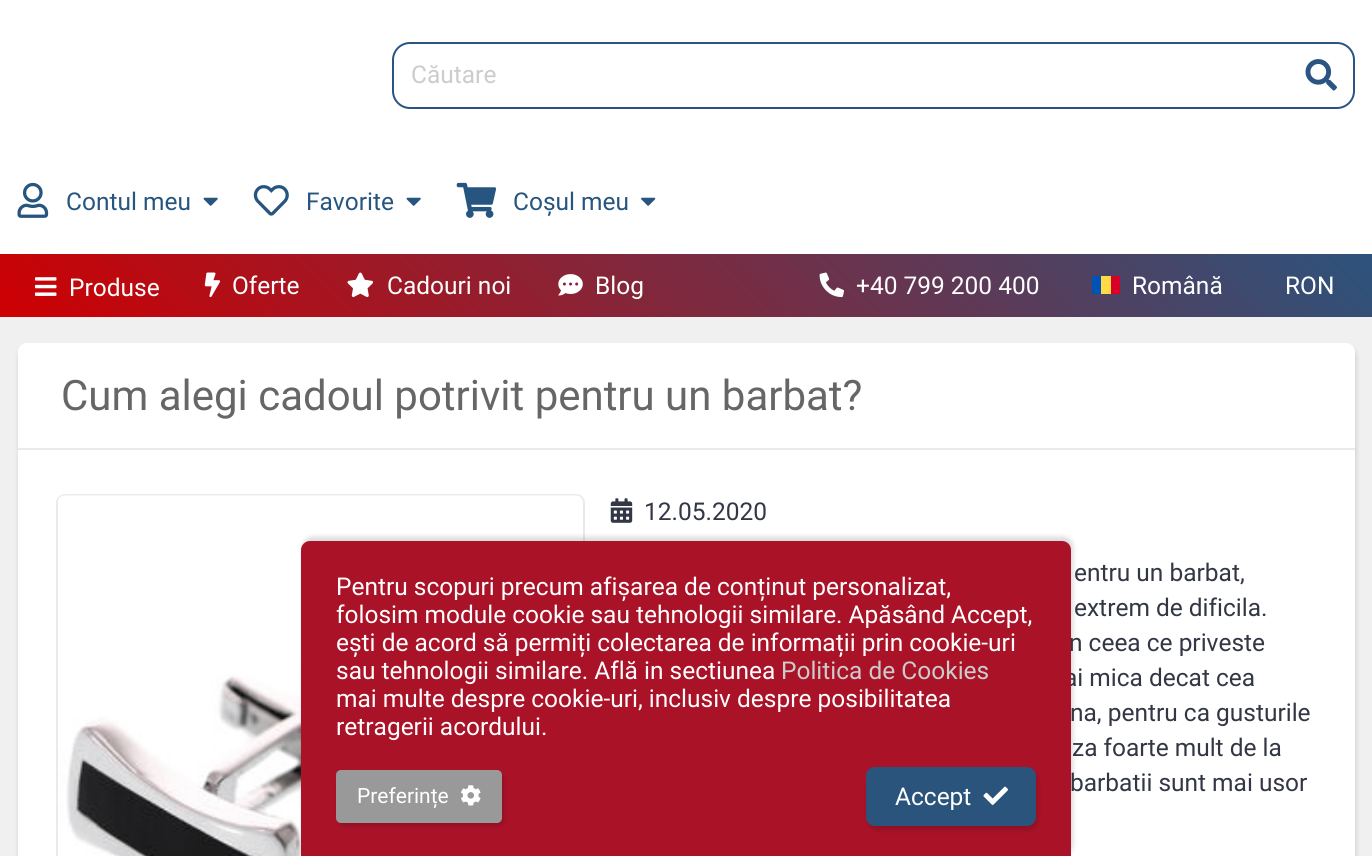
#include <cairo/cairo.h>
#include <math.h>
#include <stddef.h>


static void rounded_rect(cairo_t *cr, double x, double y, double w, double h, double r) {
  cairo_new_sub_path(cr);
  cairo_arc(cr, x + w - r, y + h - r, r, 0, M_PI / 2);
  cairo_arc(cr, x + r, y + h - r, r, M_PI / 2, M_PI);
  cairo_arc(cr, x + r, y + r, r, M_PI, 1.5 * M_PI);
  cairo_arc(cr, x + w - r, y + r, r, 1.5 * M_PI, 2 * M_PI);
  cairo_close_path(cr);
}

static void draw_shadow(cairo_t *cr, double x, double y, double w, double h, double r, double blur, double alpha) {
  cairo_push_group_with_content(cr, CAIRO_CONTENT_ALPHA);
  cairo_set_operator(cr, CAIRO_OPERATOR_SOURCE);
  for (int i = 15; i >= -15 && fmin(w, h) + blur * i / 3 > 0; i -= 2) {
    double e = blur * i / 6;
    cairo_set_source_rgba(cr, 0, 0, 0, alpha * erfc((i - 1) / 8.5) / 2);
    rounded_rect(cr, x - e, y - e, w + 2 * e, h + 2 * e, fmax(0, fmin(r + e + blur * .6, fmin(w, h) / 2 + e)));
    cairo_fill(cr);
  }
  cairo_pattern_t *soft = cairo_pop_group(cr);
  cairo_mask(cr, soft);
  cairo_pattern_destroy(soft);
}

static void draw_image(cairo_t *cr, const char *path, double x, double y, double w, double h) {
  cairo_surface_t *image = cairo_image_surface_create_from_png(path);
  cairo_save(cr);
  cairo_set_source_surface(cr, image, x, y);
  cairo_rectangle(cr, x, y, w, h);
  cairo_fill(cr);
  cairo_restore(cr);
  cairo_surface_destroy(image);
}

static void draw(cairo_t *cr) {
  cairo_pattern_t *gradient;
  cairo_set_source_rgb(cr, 240 / 255.0, 240 / 255.0, 240 / 255.0);
  cairo_paint(cr);
  cairo_set_source_rgb(cr, 1, 1, 1);
  cairo_rectangle(cr, 0, 0, 1372, 254);
  cairo_fill(cr);
  rounded_rect(cr, 393, 43, 961, 65, 17);
  cairo_set_source_rgb(cr, 43 / 255.0, 84 / 255.0, 130 / 255.0);
  cairo_stroke(cr);
  draw_image(cr, "images/1.png", 1305, 59, 32, 32);
  draw_image(cr, "images/2.png", 17, 182, 32, 36);
  draw_image(cr, "images/3.png", 203, 197, 15, 9);
  draw_image(cr, "images/4.png", 253, 185, 36, 31);
  draw_image(cr, "images/3.png", 406, 197, 15, 9);
  draw_image(cr, "images/5.png", 456, 182, 41, 36);
  draw_image(cr, "images/6.png", 641, 197, 15, 9);
  gradient = cairo_pattern_create_linear(327, 644, 1045, -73);
  cairo_pattern_add_color_stop_rgba(gradient, 0, 206 / 255.0, 0, 2 / 255.0, 1);
  cairo_pattern_add_color_stop_rgba(gradient, 1, 44 / 255.0, 83 / 255.0, 124 / 255.0, 1);
  cairo_set_source(cr, gradient);
  cairo_pattern_destroy(gradient);
  cairo_rectangle(cr, 0, 254, 1372, 63);
  cairo_fill(cr);
  draw_image(cr, "images/7.png", 35, 277, 22, 19);
  draw_image(cr, "images/8.png", 204, 272, 17, 25);
  draw_image(cr, "images/9.png", 347, 272, 27, 25);
  draw_image(cr, "images/10.png", 558, 274, 25, 22);
  draw_image(cr, "images/11.png", 819, 272, 25, 26);
  cairo_set_source_rgb(cr, 1, 218 / 255.0, 68 / 255.0);
  cairo_rectangle(cr, 1101, 276, 10, 18);
  cairo_fill(cr);
  cairo_set_source_rgb(cr, 0, 82 / 255.0, 180 / 255.0);
  cairo_rectangle(cr, 1092, 276, 9, 18);
  cairo_fill(cr);
  cairo_set_source_rgb(cr, 216 / 255.0, 0, 39 / 255.0);
  cairo_rectangle(cr, 1111, 276, 9, 18);
  cairo_fill(cr);
  cairo_set_source_rgb(cr, 0, 0, 0);
  draw_shadow(cr, 19, 347, 1337, 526, 9, 2.5, 0.15);
  cairo_set_source_rgb(cr, 1, 1, 1);
  rounded_rect(cr, 18, 343, 1337, 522, 9);
  cairo_fill(cr);
  cairo_set_source_rgb(cr, 234 / 255.0, 234 / 255.0, 234 / 255.0);
  cairo_rectangle(cr, 18, 448, 1337, 2);
  cairo_fill(cr);
  rounded_rect(cr, 57, 495, 527, 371, 8);
  cairo_stroke(cr);
  draw_image(cr, "images/12.png", 58, 495, 525, 361);
  draw_image(cr, "images/13.png", 610, 498, 23, 25);
  cairo_set_source_rgb(cr, 0, 0, 0);
  draw_shadow(cr, 303, 537, 770, 317, 9, 2.5, 0.15);
  cairo_select_font_face(cr, "Roboto", CAIRO_FONT_SLANT_NORMAL, CAIRO_FONT_WEIGHT_NORMAL);
  cairo_set_font_size(cr, 24.5);
  cairo_set_source_rgb(cr, 204 / 255.0, 204 / 255.0, 204 / 255.0);
  cairo_move_to(cr, 411, 83);
  cairo_show_text(cr, "Căutare");
  cairo_set_source_rgb(cr, 38 / 255.0, 85 / 255.0, 127 / 255.0);
  cairo_move_to(cr, 66, 210);
  cairo_show_text(cr, "Contul meu");
  cairo_move_to(cr, 306, 210);
  cairo_show_text(cr, "Favorite");
  cairo_move_to(cr, 513, 210);
  cairo_show_text(cr, "Coșul meu");
  cairo_set_source_rgb(cr, 1, 1, 1);
  cairo_move_to(cr, 69, 296);
  cairo_show_text(cr, "Produse");
  cairo_move_to(cr, 232, 294);
  cairo_show_text(cr, "Oferte");
  cairo_move_to(cr, 387, 294);
  cairo_show_text(cr, "Cadouri noi");
  cairo_move_to(cr, 595, 294);
  cairo_show_text(cr, "Blog");
  cairo_move_to(cr, 856, 294);
  cairo_show_text(cr, "+40 799 200 400");
  cairo_move_to(cr, 1132, 294);
  cairo_show_text(cr, "Română");
  cairo_move_to(cr, 1285, 294);
  cairo_show_text(cr, "RON");
  cairo_set_font_size(cr, 42);
  cairo_set_source_rgb(cr, 102 / 255.0, 102 / 255.0, 102 / 255.0);
  cairo_move_to(cr, 61, 410);
  cairo_show_text(cr, "Cum alegi cadoul potrivit pentru un barbat?");
  cairo_set_font_size(cr, 24.5);
  cairo_set_source_rgb(cr, 51 / 255.0, 55 / 255.0, 69 / 255.0);
  cairo_move_to(cr, 644, 520);
  cairo_show_text(cr, "12.05.2020");
  cairo_move_to(cr, 1074, 581);
  cairo_show_text(cr, "entru un barbat,");
  cairo_move_to(cr, 1074, 616);
  cairo_show_text(cr, "extrem de dificila.");
  cairo_move_to(cr, 1069, 651);
  cairo_show_text(cr, "n ceea ce priveste");
  cairo_move_to(cr, 1064, 686);
  cairo_show_text(cr, "ai mica decat cea");
  cairo_move_to(cr, 1070, 721);
  cairo_show_text(cr, "na, pentru ca gusturile");
  cairo_move_to(cr, 1072, 756);
  cairo_show_text(cr, "za foarte mult de la");
  cairo_move_to(cr, 1070, 791);
  cairo_show_text(cr, "barbatii sunt mai usor");
  cairo_set_source_rgb(cr, 170 / 255.0, 18 / 255.0, 40 / 255.0);
  cairo_new_path(cr);
  cairo_move_to(cr, 310, 541);
  cairo_line_to(cr, 1062, 541);
  cairo_curve_to(cr, 1067, 541, 1071, 545, 1071, 550);
  cairo_line_to(cr, 1071, 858);
  cairo_line_to(cr, 301, 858);
  cairo_line_to(cr, 301, 550);
  cairo_curve_to(cr, 301, 545, 305, 541, 310, 541);
  cairo_close_path(cr);
  cairo_fill(cr);
  cairo_set_source_rgb(cr, 1, 1, 1);
  cairo_move_to(cr, 336, 595);
  cairo_show_text(cr, "Pentru scopuri precum afișarea de conținut personalizat,");
  cairo_move_to(cr, 336, 623);
  cairo_show_text(cr, "folosim module cookie sau tehnologii similare. Apăsând Accept,");
  cairo_move_to(cr, 336, 651);
  cairo_show_text(cr, "ești de acord să permiți colectarea de informații prin cookie-uri");
  cairo_move_to(cr, 336, 679);
  cairo_show_text(cr, "sau tehnologii similare. Află in sectiunea");
  cairo_set_source_rgb(cr, 204 / 255.0, 204 / 255.0, 204 / 255.0);
  cairo_move_to(cr, 781, 679);
  cairo_show_text(cr, "Politica de Cookies");
  cairo_set_source_rgb(cr, 1, 1, 1);
  cairo_move_to(cr, 336, 707);
  cairo_show_text(cr, "mai multe despre cookie-uri, inclusiv despre posibilitatea");
  cairo_move_to(cr, 336, 735);
  cairo_show_text(cr, "retragerii acordului.");
  cairo_set_source_rgb(cr, 0, 0, 0);
  draw_shadow(cr, 338, 774, 166, 52, 5, 2.5, 0.15);
  cairo_set_source_rgb(cr, 153 / 255.0, 153 / 255.0, 153 / 255.0);
  rounded_rect(cr, 336, 770, 166, 53, 5);
  cairo_fill(cr);
  cairo_set_font_size(cr, 21);
  cairo_set_source_rgb(cr, 1, 1, 1);
  cairo_move_to(cr, 357, 803);
  cairo_show_text(cr, "Preferințe");
  draw_image(cr, "images/14.png", 461, 785, 20, 21);
  cairo_set_source_rgb(cr, 0, 0, 0);
  draw_shadow(cr, 868, 770, 170, 60, 9, 2.5, 0.15);
  cairo_set_source_rgb(cr, 42 / 255.0, 84 / 255.0, 124 / 255.0);
  rounded_rect(cr, 866, 767, 170, 59, 9);
  cairo_fill(cr);
  cairo_set_font_size(cr, 24.5);
  cairo_set_source_rgb(cr, 1, 1, 1);
  cairo_move_to(cr, 895, 805);
  cairo_show_text(cr, "Accept");
  draw_image(cr, "images/15.png", 983, 786, 25, 19);
}

int main(void) {
  cairo_surface_t *surface = cairo_image_surface_create(CAIRO_FORMAT_RGB24, 1372, 856);
  cairo_t *cr = cairo_create(surface);
  cairo_font_options_t *options = cairo_font_options_create();
  cairo_font_options_set_hint_metrics(options, CAIRO_HINT_METRICS_OFF);
  cairo_font_options_set_hint_style(options, CAIRO_HINT_STYLE_NONE);
  cairo_set_font_options(cr, options);
  cairo_set_miter_limit(cr, 4);
  draw(cr);
  cairo_surface_write_to_png(surface, "out.png");
  cairo_font_options_destroy(options);
  cairo_destroy(cr);
  cairo_surface_destroy(surface);
  return 0;
}
